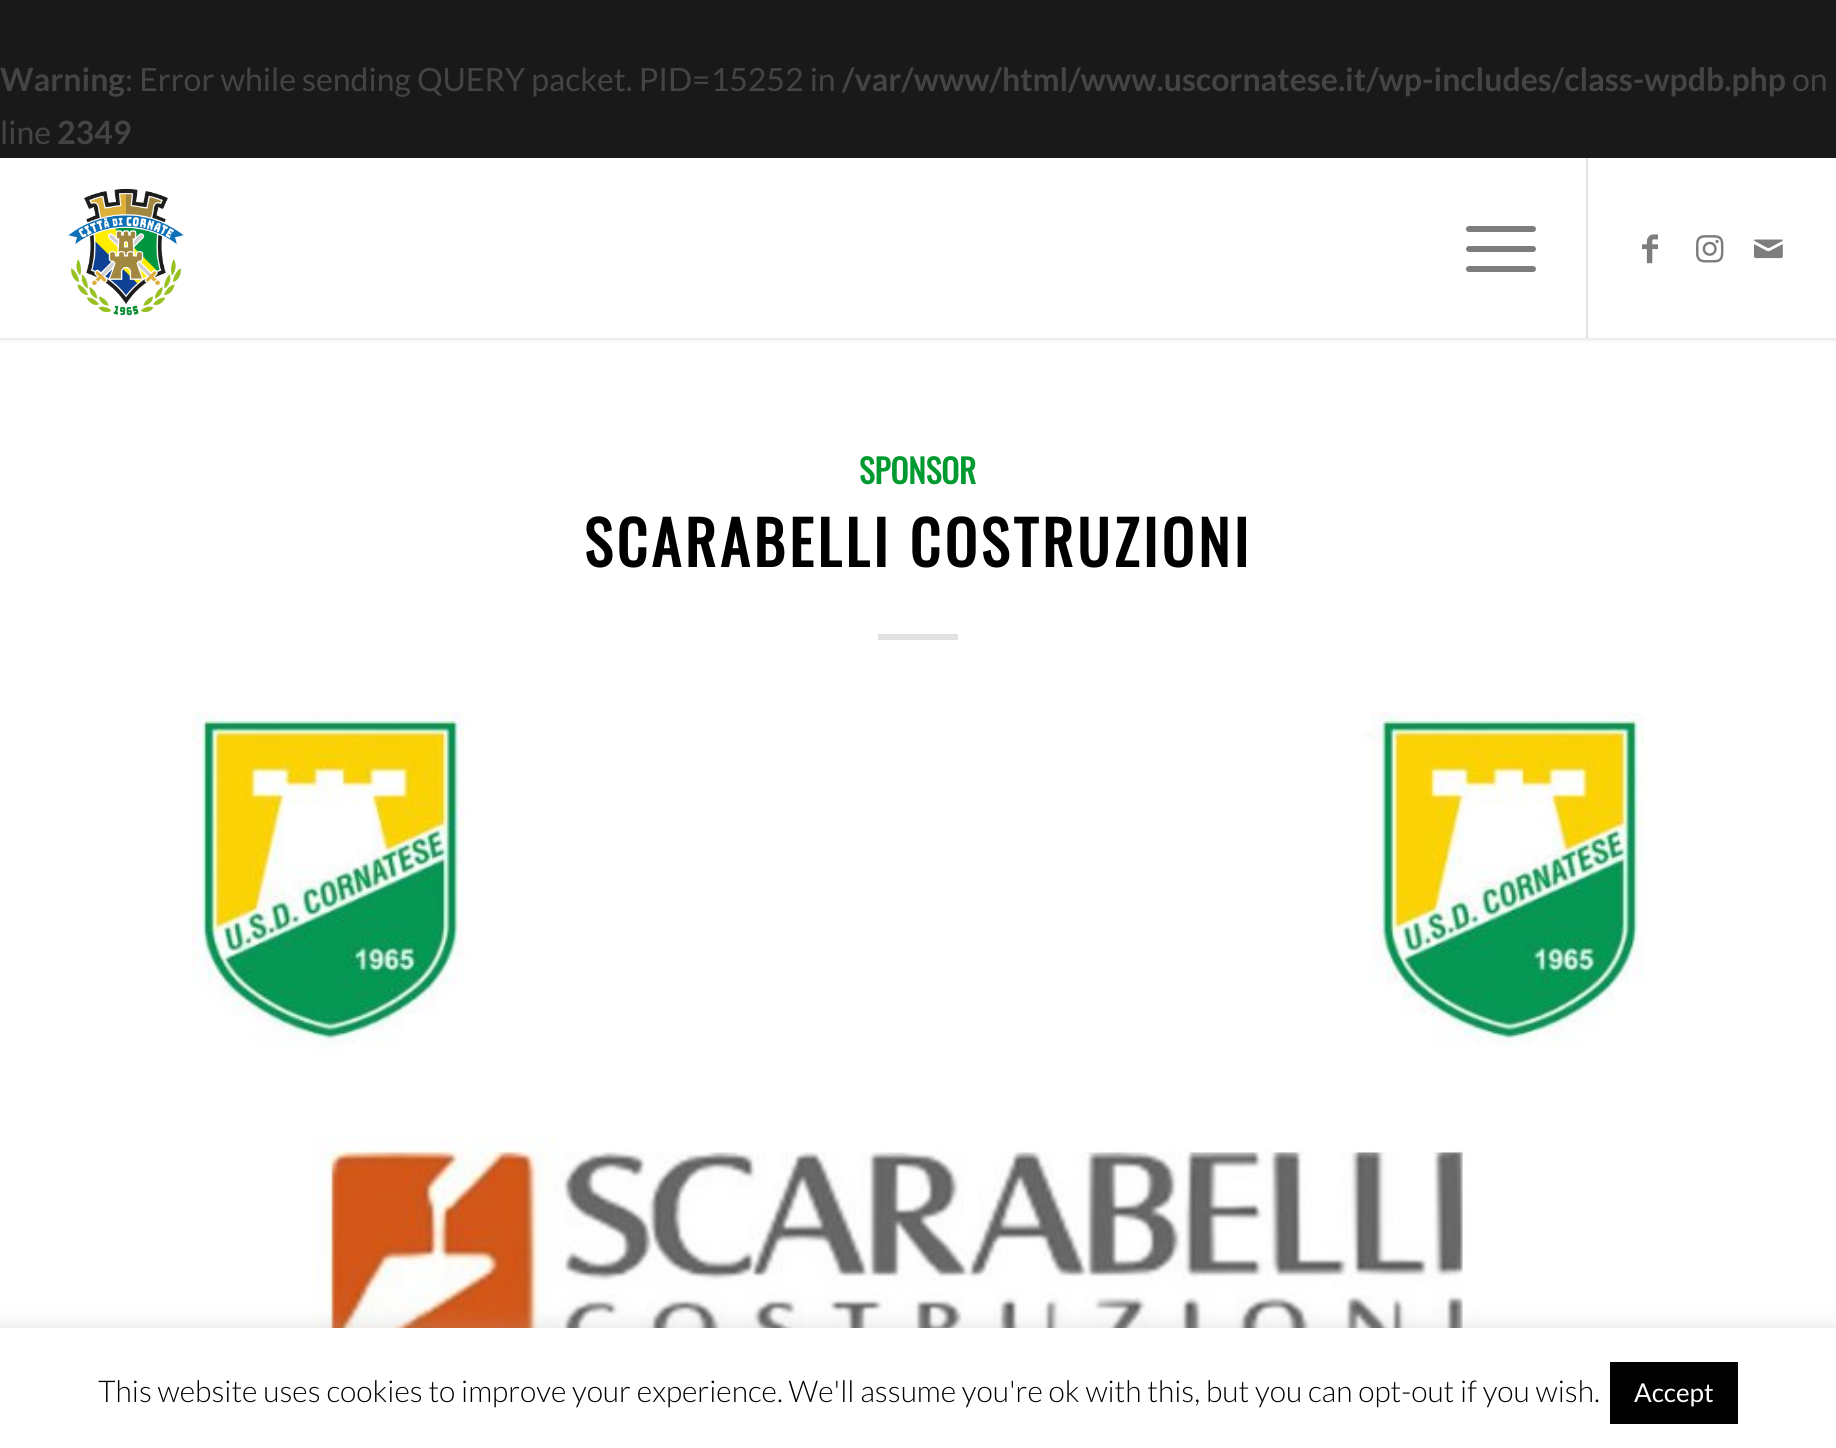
#include <cairo/cairo.h>
#include <math.h>
#include <stddef.h>


static void draw_spaced(cairo_t *cr, double x, double y, const char *s, double letter, double word) {
  cairo_move_to(cr, x, y);
  while (*s) {
    char ch[5] = {0};
    int n = 0;
    do ch[n++] = *s++; while ((*s & 0xC0) == 0x80);
    cairo_show_text(cr, ch);
    cairo_rel_move_to(cr, letter + word * (*ch == ' '), 0);
  }
}

static void rounded_rect(cairo_t *cr, double x, double y, double w, double h, double r) {
  cairo_new_sub_path(cr);
  cairo_arc(cr, x + w - r, y + h - r, r, 0, M_PI / 2);
  cairo_arc(cr, x + r, y + h - r, r, M_PI / 2, M_PI);
  cairo_arc(cr, x + r, y + r, r, M_PI, 1.5 * M_PI);
  cairo_arc(cr, x + w - r, y + r, r, 1.5 * M_PI, 2 * M_PI);
  cairo_close_path(cr);
}

static void draw_shadow(cairo_t *cr, double x, double y, double w, double h, double r, double blur, double alpha) {
  cairo_push_group_with_content(cr, CAIRO_CONTENT_ALPHA);
  cairo_set_operator(cr, CAIRO_OPERATOR_SOURCE);
  for (int i = 15; i >= -15 && fmin(w, h) + blur * i / 3 > 0; i -= 2) {
    double e = blur * i / 6;
    cairo_set_source_rgba(cr, 0, 0, 0, alpha * erfc((i - 1) / 8.5) / 2);
    rounded_rect(cr, x - e, y - e, w + 2 * e, h + 2 * e, fmax(0, fmin(r + e + blur * .6, fmin(w, h) / 2 + e)));
    cairo_fill(cr);
  }
  cairo_pattern_t *soft = cairo_pop_group(cr);
  cairo_mask(cr, soft);
  cairo_pattern_destroy(soft);
}

static void draw_image(cairo_t *cr, const char *path, double x, double y, double w, double h) {
  cairo_surface_t *image = cairo_image_surface_create_from_png(path);
  cairo_save(cr);
  cairo_set_source_surface(cr, image, x, y);
  cairo_rectangle(cr, x, y, w, h);
  cairo_fill(cr);
  cairo_restore(cr);
  cairo_surface_destroy(image);
}

static void draw(cairo_t *cr) {
  cairo_set_source_rgb(cr, 25 / 255.0, 25 / 255.0, 25 / 255.0);
  cairo_paint(cr);
  cairo_set_source_rgb(cr, 1, 1, 1);
  cairo_rectangle(cr, 0, 338, 1836, 990);
  cairo_fill(cr);
  cairo_save(cr);
  cairo_rectangle(cr, 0, 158, 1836, 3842);
  cairo_clip(cr);
  cairo_set_source_rgb(cr, 0, 0, 0);
  draw_shadow(cr, -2, 156, 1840, 184, 0, 2, 0.1);
  cairo_restore(cr);
  cairo_rectangle(cr, 0, 158, 1836, 180);
  cairo_fill(cr);
  draw_image(cr, "images/1.png", 67, 188, 119, 128);
  cairo_set_source_rgb(cr, 225 / 255.0, 225 / 255.0, 225 / 255.0);
  cairo_rectangle(cr, 1586, 158, 2, 180);
  cairo_fill(cr);
  cairo_set_source_rgb(cr, 125 / 255.0, 125 / 255.0, 125 / 255.0);
  rounded_rect(cr, 1466, 246, 70, 6, 3);
  cairo_fill(cr);
  rounded_rect(cr, 1466, 226, 70, 6, 3);
  cairo_fill(cr);
  rounded_rect(cr, 1466, 266, 70, 6, 3);
  cairo_fill(cr);
  draw_image(cr, "images/2.png", 1642, 234, 16, 30);
  draw_image(cr, "images/3.png", 1696, 235, 28, 28);
  draw_image(cr, "images/4.png", 1754, 239, 29, 20);
  cairo_set_source_rgb(cr, 225 / 255.0, 225 / 255.0, 225 / 255.0);
  cairo_rectangle(cr, 878, 634, 80, 6);
  cairo_fill(cr);
  draw_image(cr, "images/5.png", 192, 712, 1452, 616);
  cairo_set_source_rgb(cr, 172 / 255.0, 171 / 255.0, 171 / 255.0);
  draw_shadow(cr, 0, 1326, 1836, 120, 0, 10, 0.3);
  cairo_set_source_rgb(cr, 1, 1, 1);
  cairo_rectangle(cr, 0, 1328, 1836, 120);
  cairo_fill(cr);
  cairo_set_source_rgb(cr, 0, 0, 0);
  cairo_rectangle(cr, 1610, 1362, 128, 62);
  cairo_fill(cr);
  cairo_select_font_face(cr, "Lato", CAIRO_FONT_SLANT_NORMAL, CAIRO_FONT_WEIGHT_BOLD);
  cairo_set_font_size(cr, 32);
  cairo_set_source_rgb(cr, 68 / 255.0, 68 / 255.0, 68 / 255.0);
  cairo_move_to(cr, 0, 91);
  cairo_show_text(cr, "Warning");
  cairo_select_font_face(cr, "Lato", CAIRO_FONT_SLANT_NORMAL, CAIRO_FONT_WEIGHT_NORMAL);
  cairo_move_to(cr, 125, 91);
  cairo_show_text(cr, ": Error while sending QUERY packet. PID=15252 in");
  cairo_select_font_face(cr, "Lato", CAIRO_FONT_SLANT_NORMAL, CAIRO_FONT_WEIGHT_BOLD);
  cairo_move_to(cr, 842, 91);
  cairo_show_text(cr, "/var/www/html/www.uscornatese.it/wp-includes/class-wpdb.php");
  cairo_select_font_face(cr, "Lato", CAIRO_FONT_SLANT_NORMAL, CAIRO_FONT_WEIGHT_NORMAL);
  cairo_move_to(cr, 1792, 91);
  cairo_show_text(cr, "on");
  cairo_move_to(cr, 0, 144);
  cairo_show_text(cr, "line");
  cairo_select_font_face(cr, "Lato", CAIRO_FONT_SLANT_NORMAL, CAIRO_FONT_WEIGHT_BOLD);
  cairo_move_to(cr, 57, 144);
  cairo_show_text(cr, "2349");
  cairo_select_font_face(cr, "Oswald", CAIRO_FONT_SLANT_NORMAL, CAIRO_FONT_WEIGHT_BOLD);
  cairo_set_font_size(cr, 33);
  cairo_set_source_rgb(cr, 0, 154 / 255.0, 49 / 255.0);
  cairo_move_to(cr, 859, 484);
  cairo_show_text(cr, "SPONSOR");
  cairo_set_font_size(cr, 60);
  cairo_set_source_rgb(cr, 0, 0, 0);
  draw_spaced(cr, 584, 567, "SCARABELLI COSTRUZIONI", 4, 0);
  cairo_select_font_face(cr, "Lato Light", CAIRO_FONT_SLANT_NORMAL, CAIRO_FONT_WEIGHT_NORMAL);
  cairo_set_font_size(cr, 30);
  cairo_move_to(cr, 98, 1402);
  cairo_show_text(cr, "This website uses cookies to improve your experience. We'll assume you're ok with this, but you can opt-out if you wish.");
  cairo_select_font_face(cr, "Lato", CAIRO_FONT_SLANT_NORMAL, CAIRO_FONT_WEIGHT_NORMAL);
  cairo_set_font_size(cr, 26);
  cairo_set_source_rgb(cr, 1, 1, 1);
  cairo_move_to(cr, 1634, 1402);
  cairo_show_text(cr, "Accept");
}

int main(void) {
  cairo_surface_t *surface = cairo_image_surface_create(CAIRO_FORMAT_RGB24, 1836, 1448);
  cairo_t *cr = cairo_create(surface);
  cairo_font_options_t *options = cairo_font_options_create();
  cairo_font_options_set_hint_metrics(options, CAIRO_HINT_METRICS_OFF);
  cairo_font_options_set_hint_style(options, CAIRO_HINT_STYLE_NONE);
  cairo_set_font_options(cr, options);
  cairo_set_miter_limit(cr, 4);
  draw(cr);
  cairo_surface_write_to_png(surface, "out.png");
  cairo_font_options_destroy(options);
  cairo_destroy(cr);
  cairo_surface_destroy(surface);
  return 0;
}
